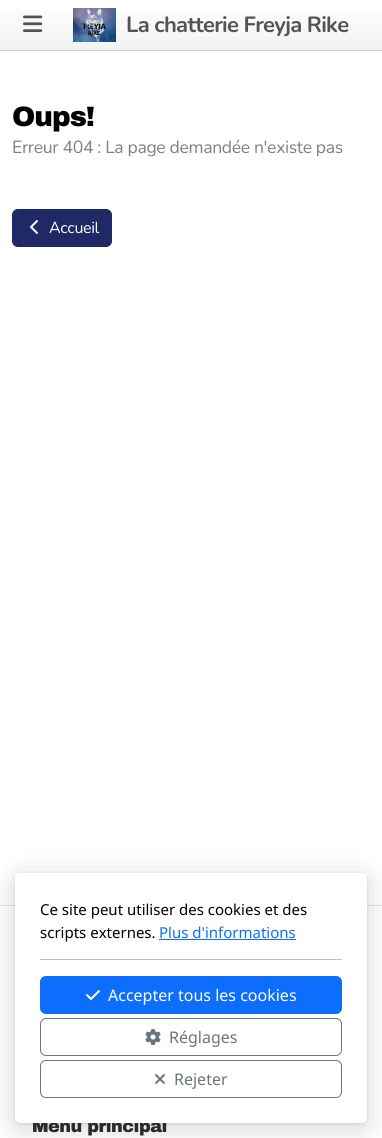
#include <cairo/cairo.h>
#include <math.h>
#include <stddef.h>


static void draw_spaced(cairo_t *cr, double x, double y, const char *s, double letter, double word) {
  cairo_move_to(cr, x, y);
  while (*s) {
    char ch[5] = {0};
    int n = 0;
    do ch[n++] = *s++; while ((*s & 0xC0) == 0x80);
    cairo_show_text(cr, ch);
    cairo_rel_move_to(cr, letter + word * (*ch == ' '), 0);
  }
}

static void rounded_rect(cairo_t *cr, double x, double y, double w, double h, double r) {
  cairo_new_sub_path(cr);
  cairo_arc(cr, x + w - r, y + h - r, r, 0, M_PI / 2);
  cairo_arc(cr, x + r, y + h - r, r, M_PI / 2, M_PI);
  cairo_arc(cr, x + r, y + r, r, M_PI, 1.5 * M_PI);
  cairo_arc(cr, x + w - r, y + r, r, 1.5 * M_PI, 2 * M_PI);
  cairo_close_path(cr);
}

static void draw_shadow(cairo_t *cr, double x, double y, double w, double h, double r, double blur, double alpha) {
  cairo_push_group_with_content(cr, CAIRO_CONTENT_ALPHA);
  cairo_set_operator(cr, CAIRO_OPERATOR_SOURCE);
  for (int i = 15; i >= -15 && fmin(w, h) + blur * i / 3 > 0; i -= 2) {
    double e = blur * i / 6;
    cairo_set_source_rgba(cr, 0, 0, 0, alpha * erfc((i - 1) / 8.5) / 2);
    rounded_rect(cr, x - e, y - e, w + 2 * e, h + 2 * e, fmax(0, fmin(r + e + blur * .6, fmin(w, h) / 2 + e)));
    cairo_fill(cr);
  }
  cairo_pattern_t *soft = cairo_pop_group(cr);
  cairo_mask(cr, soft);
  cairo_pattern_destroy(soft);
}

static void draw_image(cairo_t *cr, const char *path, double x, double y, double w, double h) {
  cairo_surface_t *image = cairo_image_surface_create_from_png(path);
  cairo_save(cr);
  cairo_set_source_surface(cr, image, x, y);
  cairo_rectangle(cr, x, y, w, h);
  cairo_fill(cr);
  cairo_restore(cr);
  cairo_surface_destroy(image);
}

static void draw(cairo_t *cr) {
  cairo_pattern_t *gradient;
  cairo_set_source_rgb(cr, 1, 1, 1);
  cairo_paint(cr);
  gradient = cairo_pattern_create_linear(191, 0, 191, 50);
  cairo_pattern_add_color_stop_rgba(gradient, 0, 1, 1, 1, 1);
  cairo_pattern_add_color_stop_rgba(gradient, 1, 242 / 255.0, 242 / 255.0, 242 / 255.0, 1);
  cairo_set_source(cr, gradient);
  cairo_pattern_destroy(gradient);
  cairo_rectangle(cr, 0, 10, 382, 40);
  cairo_fill(cr);
  cairo_set_source_rgb(cr, 204 / 255.0, 204 / 255.0, 204 / 255.0);
  cairo_rectangle(cr, 0, 50, 382, 1);
  cairo_fill(cr);
  draw_image(cr, "images/1.png", 23, 15, 20, 17);
  draw_image(cr, "images/2.png", 73, 8, 43, 34);
  cairo_set_source_rgb(cr, 31 / 255.0, 41 / 255.0, 102 / 255.0);
  rounded_rect(cr, 12.5, 209.5, 99, 37, 5.5);
  cairo_fill_preserve(cr);
  cairo_set_line_width(cr, 1);
  cairo_stroke(cr);
  draw_image(cr, "images/3.png", 30, 220, 8, 14);
  cairo_set_source_rgb(cr, 222 / 255.0, 226 / 255.0, 230 / 255.0);
  cairo_rectangle(cr, 0, 905, 382, 1);
  cairo_fill(cr);
  cairo_set_source_rgb(cr, 0, 0, 0);
  draw_shadow(cr, 15, 878, 352, 250, 5, 15, 0.16);
  draw_shadow(cr, 15, 874, 352, 250, 5, 1.5, 0.1);
  cairo_select_font_face(cr, "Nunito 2 ExtraLight", CAIRO_FONT_SLANT_NORMAL, CAIRO_FONT_WEIGHT_NORMAL);
  cairo_set_font_size(cr, 22);
  cairo_set_source_rgb(cr, 84 / 255.0, 84 / 255.0, 84 / 255.0);
  draw_spaced(cr, 126, 32, "La chatterie Freyja Rike", -0.7, 0);
  cairo_select_font_face(cr, "Archivo Black Black", CAIRO_FONT_SLANT_NORMAL, CAIRO_FONT_WEIGHT_NORMAL);
  cairo_set_font_size(cr, 28);
  cairo_set_source_rgb(cr, 0, 0, 0);
  draw_spaced(cr, 12, 126, "Oups!", -1, 0);
  cairo_select_font_face(cr, "Nunito ExtraLight", CAIRO_FONT_SLANT_NORMAL, CAIRO_FONT_WEIGHT_NORMAL);
  cairo_set_font_size(cr, 17.6);
  cairo_set_source_rgb(cr, 128 / 255.0, 128 / 255.0, 128 / 255.0);
  draw_spaced(cr, 12, 153, "Erreur 404 : La page demandée n'existe pas", -0.35, 0);
  cairo_set_font_size(cr, 16);
  cairo_set_source_rgb(cr, 1, 1, 1);
  draw_spaced(cr, 49, 233, "Accueil", -0.35, 0);
  cairo_select_font_face(cr, "Archivo Black Black", CAIRO_FONT_SLANT_NORMAL, CAIRO_FONT_WEIGHT_NORMAL);
  cairo_set_font_size(cr, 17.6);
  cairo_set_source_rgb(cr, 42 / 255.0, 42 / 255.0, 42 / 255.0);
  draw_spaced(cr, 32, 1132, "Menu principal", -0.5, 0);
  cairo_set_source_rgb(cr, 1, 1, 1);
  rounded_rect(cr, 15, 873, 352, 250, 5);
  cairo_fill(cr);
  cairo_select_font_face(cr, "Noto Sans", CAIRO_FONT_SLANT_NORMAL, CAIRO_FONT_WEIGHT_NORMAL);
  cairo_set_font_size(cr, 15);
  cairo_set_source_rgb(cr, 0, 0, 0);
  cairo_move_to(cr, 40, 915);
  cairo_show_text(cr, "Ce site peut utiliser des cookies et des");
  cairo_move_to(cr, 40, 938);
  cairo_show_text(cr, "scripts externes.");
  cairo_set_source_rgb(cr, 13 / 255.0, 110 / 255.0, 253 / 255.0);
  cairo_move_to(cr, 159, 938);
  cairo_show_text(cr, "Plus d'informations");
  cairo_rectangle(cr, 159, 939, 137, 1);
  cairo_fill(cr);
  cairo_set_source_rgb(cr, 191 / 255.0, 191 / 255.0, 191 / 255.0);
  cairo_rectangle(cr, 40, 959, 302, 1);
  cairo_fill(cr);
  cairo_set_source_rgb(cr, 13 / 255.0, 110 / 255.0, 253 / 255.0);
  rounded_rect(cr, 40.5, 976.5, 301, 37, 5.5);
  cairo_fill_preserve(cr);
  cairo_stroke(cr);
  draw_image(cr, "images/4.png", 86, 990, 14, 10);
  cairo_set_font_size(cr, 16);
  cairo_set_source_rgb(cr, 1, 1, 1);
  cairo_move_to(cr, 108, 1001);
  cairo_show_text(cr, "Accepter tous les cookies");
  rounded_rect(cr, 40.5, 1018.5, 301, 37, 5.5);
  cairo_set_source_rgb(cr, 108 / 255.0, 117 / 255.0, 125 / 255.0);
  cairo_stroke(cr);
  draw_image(cr, "images/5.png", 145, 1029, 16, 16);
  cairo_move_to(cr, 169, 1043);
  cairo_show_text(cr, "Réglages");
  rounded_rect(cr, 40.5, 1060.5, 301, 37, 5.5);
  cairo_stroke(cr);
  draw_image(cr, "images/6.png", 155, 1074, 10, 10);
  cairo_move_to(cr, 174, 1085);
  cairo_show_text(cr, "Rejeter");
}

int main(void) {
  cairo_surface_t *surface = cairo_image_surface_create(CAIRO_FORMAT_RGB24, 382, 1138);
  cairo_t *cr = cairo_create(surface);
  cairo_font_options_t *options = cairo_font_options_create();
  cairo_font_options_set_hint_metrics(options, CAIRO_HINT_METRICS_OFF);
  cairo_font_options_set_hint_style(options, CAIRO_HINT_STYLE_NONE);
  cairo_set_font_options(cr, options);
  cairo_set_miter_limit(cr, 4);
  draw(cr);
  cairo_surface_write_to_png(surface, "out.png");
  cairo_font_options_destroy(options);
  cairo_destroy(cr);
  cairo_surface_destroy(surface);
  return 0;
}
